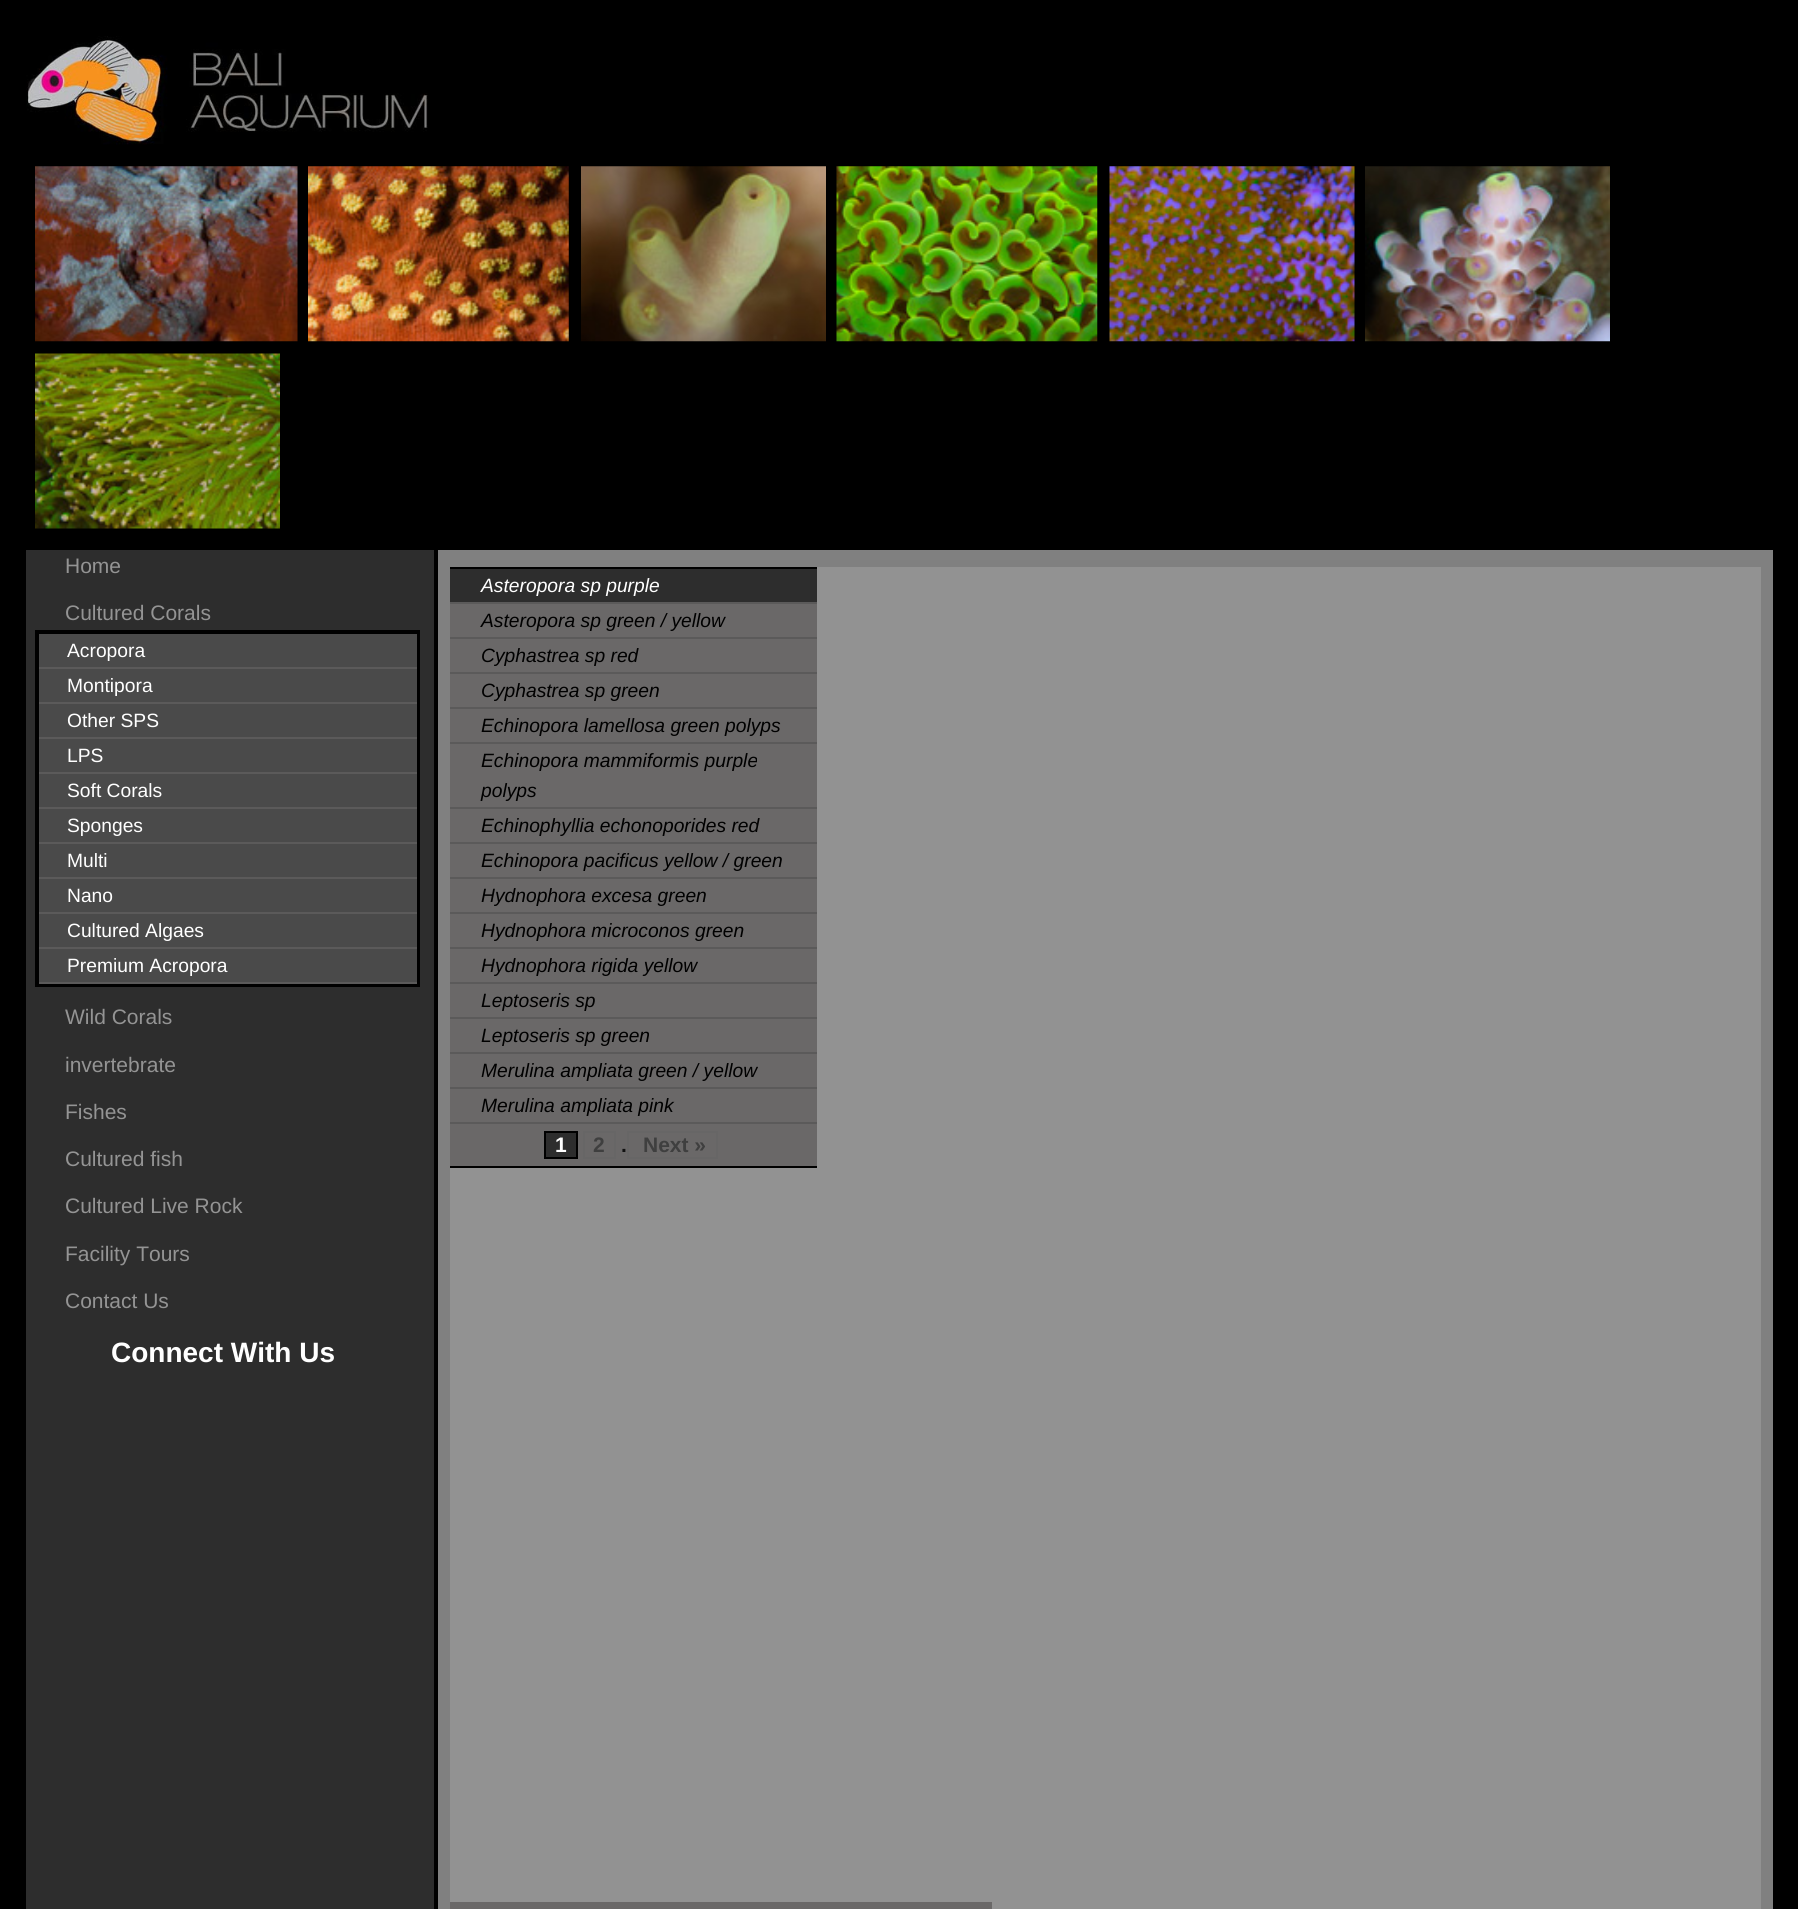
#include <cairo/cairo.h>
#include <math.h>
#include <stddef.h>


static void draw_image(cairo_t *cr, const char *path, double x, double y, double w, double h) {
  cairo_surface_t *image = cairo_image_surface_create_from_png(path);
  cairo_save(cr);
  cairo_set_source_surface(cr, image, x, y);
  cairo_rectangle(cr, x, y, w, h);
  cairo_fill(cr);
  cairo_restore(cr);
  cairo_surface_destroy(image);
}

static void draw(cairo_t *cr) {
  cairo_set_source_rgb(cr, 0, 0, 0);
  cairo_paint(cr);
  draw_image(cr, "images/1.png", 26, 36, 402, 109);
  draw_image(cr, "images/2.png", 35, 166, 263, 176);
  draw_image(cr, "images/3.png", 308, 166, 261, 176);
  draw_image(cr, "images/4.png", 581, 166, 245, 176);
  draw_image(cr, "images/5.png", 836, 166, 262, 176);
  draw_image(cr, "images/6.png", 1109, 166, 246, 176);
  draw_image(cr, "images/7.png", 1365, 166, 245, 176);
  draw_image(cr, "images/8.png", 35, 353, 245, 176);
  cairo_set_source_rgb(cr, 45 / 255.0, 45 / 255.0, 45 / 255.0);
  cairo_rectangle(cr, 26, 550, 408, 1359);
  cairo_fill(cr);
  cairo_rectangle(cr, 37, 632, 381, 353);
  cairo_set_source_rgb(cr, 0, 0, 0);
  cairo_set_line_width(cr, 4);
  cairo_stroke(cr);
  cairo_set_source_rgb(cr, 91 / 255.0, 90 / 255.0, 90 / 255.0);
  cairo_rectangle(cr, 39, 667, 378, 2);
  cairo_fill(cr);
  cairo_set_source_rgb(cr, 74 / 255.0, 74 / 255.0, 74 / 255.0);
  cairo_rectangle(cr, 39, 634, 378, 33);
  cairo_fill(cr);
  cairo_set_source_rgb(cr, 91 / 255.0, 90 / 255.0, 90 / 255.0);
  cairo_rectangle(cr, 39, 702, 378, 2);
  cairo_fill(cr);
  cairo_set_source_rgb(cr, 74 / 255.0, 74 / 255.0, 74 / 255.0);
  cairo_rectangle(cr, 39, 669, 378, 33);
  cairo_fill(cr);
  cairo_set_source_rgb(cr, 91 / 255.0, 90 / 255.0, 90 / 255.0);
  cairo_rectangle(cr, 39, 737, 378, 2);
  cairo_fill(cr);
  cairo_set_source_rgb(cr, 74 / 255.0, 74 / 255.0, 74 / 255.0);
  cairo_rectangle(cr, 39, 704, 378, 33);
  cairo_fill(cr);
  cairo_set_source_rgb(cr, 91 / 255.0, 90 / 255.0, 90 / 255.0);
  cairo_rectangle(cr, 39, 772, 378, 2);
  cairo_fill(cr);
  cairo_set_source_rgb(cr, 74 / 255.0, 74 / 255.0, 74 / 255.0);
  cairo_rectangle(cr, 39, 739, 378, 33);
  cairo_fill(cr);
  cairo_set_source_rgb(cr, 91 / 255.0, 90 / 255.0, 90 / 255.0);
  cairo_rectangle(cr, 39, 807, 378, 2);
  cairo_fill(cr);
  cairo_set_source_rgb(cr, 74 / 255.0, 74 / 255.0, 74 / 255.0);
  cairo_rectangle(cr, 39, 774, 378, 33);
  cairo_fill(cr);
  cairo_set_source_rgb(cr, 91 / 255.0, 90 / 255.0, 90 / 255.0);
  cairo_rectangle(cr, 39, 842, 378, 2);
  cairo_fill(cr);
  cairo_set_source_rgb(cr, 74 / 255.0, 74 / 255.0, 74 / 255.0);
  cairo_rectangle(cr, 39, 809, 378, 33);
  cairo_fill(cr);
  cairo_set_source_rgb(cr, 91 / 255.0, 90 / 255.0, 90 / 255.0);
  cairo_rectangle(cr, 39, 877, 378, 2);
  cairo_fill(cr);
  cairo_set_source_rgb(cr, 74 / 255.0, 74 / 255.0, 74 / 255.0);
  cairo_rectangle(cr, 39, 844, 378, 33);
  cairo_fill(cr);
  cairo_set_source_rgb(cr, 91 / 255.0, 90 / 255.0, 90 / 255.0);
  cairo_rectangle(cr, 39, 912, 378, 2);
  cairo_fill(cr);
  cairo_set_source_rgb(cr, 74 / 255.0, 74 / 255.0, 74 / 255.0);
  cairo_rectangle(cr, 39, 879, 378, 33);
  cairo_fill(cr);
  cairo_set_source_rgb(cr, 91 / 255.0, 90 / 255.0, 90 / 255.0);
  cairo_rectangle(cr, 39, 947, 378, 2);
  cairo_fill(cr);
  cairo_set_source_rgb(cr, 74 / 255.0, 74 / 255.0, 74 / 255.0);
  cairo_rectangle(cr, 39, 914, 378, 33);
  cairo_fill(cr);
  cairo_set_source_rgb(cr, 91 / 255.0, 90 / 255.0, 90 / 255.0);
  cairo_rectangle(cr, 39, 982, 378, 2);
  cairo_fill(cr);
  cairo_set_source_rgb(cr, 74 / 255.0, 74 / 255.0, 74 / 255.0);
  cairo_rectangle(cr, 39, 949, 378, 33);
  cairo_fill(cr);
  cairo_set_source_rgb(cr, 128 / 255.0, 128 / 255.0, 128 / 255.0);
  cairo_rectangle(cr, 438, 550, 1335, 1359);
  cairo_fill(cr);
  cairo_set_source_rgb(cr, 146 / 255.0, 146 / 255.0, 146 / 255.0);
  cairo_rectangle(cr, 450, 567, 1311, 1342);
  cairo_fill(cr);
  cairo_set_source_rgb(cr, 106 / 255.0, 104 / 255.0, 104 / 255.0);
  cairo_rectangle(cr, 450, 604, 367, 562);
  cairo_fill(cr);
  cairo_set_source_rgb(cr, 0, 0, 0);
  cairo_rectangle(cr, 450, 567, 367, 2);
  cairo_fill(cr);
  cairo_rectangle(cr, 450, 1166, 367, 2);
  cairo_fill(cr);
  cairo_set_source_rgb(cr, 91 / 255.0, 90 / 255.0, 90 / 255.0);
  cairo_rectangle(cr, 450, 602, 367, 2);
  cairo_fill(cr);
  cairo_set_source_rgb(cr, 45 / 255.0, 45 / 255.0, 45 / 255.0);
  cairo_rectangle(cr, 450, 569, 367, 33);
  cairo_fill(cr);
  cairo_set_source_rgb(cr, 91 / 255.0, 90 / 255.0, 90 / 255.0);
  cairo_rectangle(cr, 450, 637, 367, 2);
  cairo_fill(cr);
  cairo_rectangle(cr, 450, 672, 367, 2);
  cairo_fill(cr);
  cairo_rectangle(cr, 450, 707, 367, 2);
  cairo_fill(cr);
  cairo_rectangle(cr, 450, 742, 367, 2);
  cairo_fill(cr);
  cairo_rectangle(cr, 450, 807, 367, 2);
  cairo_fill(cr);
  cairo_rectangle(cr, 450, 842, 367, 2);
  cairo_fill(cr);
  cairo_rectangle(cr, 450, 877, 367, 2);
  cairo_fill(cr);
  cairo_rectangle(cr, 450, 912, 367, 2);
  cairo_fill(cr);
  cairo_rectangle(cr, 450, 947, 367, 2);
  cairo_fill(cr);
  cairo_rectangle(cr, 450, 982, 367, 2);
  cairo_fill(cr);
  cairo_rectangle(cr, 450, 1017, 367, 2);
  cairo_fill(cr);
  cairo_rectangle(cr, 450, 1052, 367, 2);
  cairo_fill(cr);
  cairo_rectangle(cr, 450, 1087, 367, 2);
  cairo_fill(cr);
  cairo_rectangle(cr, 450, 1122, 367, 2);
  cairo_fill(cr);
  cairo_set_source_rgb(cr, 45 / 255.0, 45 / 255.0, 45 / 255.0);
  cairo_rectangle(cr, 545, 1132, 32, 26);
  cairo_fill_preserve(cr);
  cairo_set_source_rgb(cr, 0, 0, 0);
  cairo_set_line_width(cr, 2);
  cairo_stroke(cr);
  cairo_rectangle(cr, 584, 1132, 31, 26);
  cairo_set_source_rgb(cr, 103 / 255.0, 102 / 255.0, 102 / 255.0);
  cairo_stroke(cr);
  cairo_rectangle(cr, 628, 1132, 89, 26);
  cairo_stroke(cr);
  cairo_set_source_rgb(cr, 106 / 255.0, 104 / 255.0, 104 / 255.0);
  cairo_rectangle(cr, 450, 1902, 542, 7);
  cairo_fill(cr);
  cairo_select_font_face(cr, "Liberation Sans", CAIRO_FONT_SLANT_NORMAL, CAIRO_FONT_WEIGHT_NORMAL);
  cairo_set_font_size(cr, 21);
  cairo_set_source_rgb(cr, 148 / 255.0, 148 / 255.0, 148 / 255.0);
  cairo_move_to(cr, 65, 573);
  cairo_show_text(cr, "Home");
  cairo_move_to(cr, 65, 620);
  cairo_show_text(cr, "Cultured Corals");
  cairo_set_font_size(cr, 19.25);
  cairo_set_source_rgb(cr, 1, 1, 1);
  cairo_move_to(cr, 67, 657);
  cairo_show_text(cr, "Acropora");
  cairo_move_to(cr, 67, 692);
  cairo_show_text(cr, "Montipora");
  cairo_move_to(cr, 67, 727);
  cairo_show_text(cr, "Other SPS");
  cairo_move_to(cr, 67, 762);
  cairo_show_text(cr, "LPS");
  cairo_move_to(cr, 67, 797);
  cairo_show_text(cr, "Soft Corals");
  cairo_move_to(cr, 67, 832);
  cairo_show_text(cr, "Sponges");
  cairo_move_to(cr, 67, 867);
  cairo_show_text(cr, "Multi");
  cairo_move_to(cr, 67, 902);
  cairo_show_text(cr, "Nano");
  cairo_move_to(cr, 67, 937);
  cairo_show_text(cr, "Cultured Algaes");
  cairo_move_to(cr, 67, 972);
  cairo_show_text(cr, "Premium Acropora");
  cairo_set_font_size(cr, 21);
  cairo_set_source_rgb(cr, 148 / 255.0, 148 / 255.0, 148 / 255.0);
  cairo_move_to(cr, 65, 1024);
  cairo_show_text(cr, "Wild Corals");
  cairo_move_to(cr, 65, 1072);
  cairo_show_text(cr, "invertebrate");
  cairo_move_to(cr, 65, 1119);
  cairo_show_text(cr, "Fishes");
  cairo_move_to(cr, 65, 1166);
  cairo_show_text(cr, "Cultured fish");
  cairo_move_to(cr, 65, 1213);
  cairo_show_text(cr, "Cultured Live Rock");
  cairo_move_to(cr, 65, 1261);
  cairo_show_text(cr, "Facility Tours");
  cairo_move_to(cr, 65, 1308);
  cairo_show_text(cr, "Contact Us");
  cairo_select_font_face(cr, "Liberation Sans", CAIRO_FONT_SLANT_NORMAL, CAIRO_FONT_WEIGHT_BOLD);
  cairo_set_font_size(cr, 28);
  cairo_set_source_rgb(cr, 1, 1, 1);
  cairo_move_to(cr, 111, 1362);
  cairo_show_text(cr, "Connect With Us");
  cairo_select_font_face(cr, "Liberation Sans", CAIRO_FONT_SLANT_ITALIC, CAIRO_FONT_WEIGHT_NORMAL);
  cairo_set_font_size(cr, 19.25);
  cairo_move_to(cr, 481, 592);
  cairo_show_text(cr, "Asteropora sp purple");
  cairo_set_source_rgb(cr, 0, 0, 0);
  cairo_move_to(cr, 481, 627);
  cairo_show_text(cr, "Asteropora sp green / yellow");
  cairo_move_to(cr, 481, 662);
  cairo_show_text(cr, "Cyphastrea sp red");
  cairo_move_to(cr, 481, 697);
  cairo_show_text(cr, "Cyphastrea sp green");
  cairo_move_to(cr, 481, 732);
  cairo_show_text(cr, "Echinopora lamellosa green polyps");
  cairo_move_to(cr, 481, 767);
  cairo_show_text(cr, "Echinopora mammiformis purple");
  cairo_move_to(cr, 481, 797);
  cairo_show_text(cr, "polyps");
  cairo_move_to(cr, 481, 832);
  cairo_show_text(cr, "Echinophyllia echonoporides red");
  cairo_move_to(cr, 481, 867);
  cairo_show_text(cr, "Echinopora pacificus yellow / green");
  cairo_move_to(cr, 481, 902);
  cairo_show_text(cr, "Hydnophora excesa green");
  cairo_move_to(cr, 481, 937);
  cairo_show_text(cr, "Hydnophora microconos green");
  cairo_move_to(cr, 481, 972);
  cairo_show_text(cr, "Hydnophora rigida yellow");
  cairo_move_to(cr, 481, 1007);
  cairo_show_text(cr, "Leptoseris sp");
  cairo_move_to(cr, 481, 1042);
  cairo_show_text(cr, "Leptoseris sp green");
  cairo_move_to(cr, 481, 1077);
  cairo_show_text(cr, "Merulina ampliata green / yellow");
  cairo_move_to(cr, 481, 1112);
  cairo_show_text(cr, "Merulina ampliata pink");
  cairo_select_font_face(cr, "Liberation Sans", CAIRO_FONT_SLANT_NORMAL, CAIRO_FONT_WEIGHT_BOLD);
  cairo_set_font_size(cr, 21);
  cairo_set_source_rgb(cr, 1, 1, 1);
  cairo_move_to(cr, 555, 1152);
  cairo_show_text(cr, "1");
  cairo_set_source_rgb(cr, 63 / 255.0, 63 / 255.0, 63 / 255.0);
  cairo_move_to(cr, 593, 1152);
  cairo_show_text(cr, "2");
  cairo_set_source_rgb(cr, 17 / 255.0, 17 / 255.0, 17 / 255.0);
  cairo_move_to(cr, 621, 1152);
  cairo_show_text(cr, ".");
  cairo_set_source_rgb(cr, 63 / 255.0, 63 / 255.0, 63 / 255.0);
  cairo_move_to(cr, 643, 1152);
  cairo_show_text(cr, "Next »");
}

int main(void) {
  cairo_surface_t *surface = cairo_image_surface_create(CAIRO_FORMAT_RGB24, 1798, 1909);
  cairo_t *cr = cairo_create(surface);
  cairo_font_options_t *options = cairo_font_options_create();
  cairo_font_options_set_hint_metrics(options, CAIRO_HINT_METRICS_OFF);
  cairo_font_options_set_hint_style(options, CAIRO_HINT_STYLE_NONE);
  cairo_set_font_options(cr, options);
  cairo_set_miter_limit(cr, 4);
  draw(cr);
  cairo_surface_write_to_png(surface, "out.png");
  cairo_font_options_destroy(options);
  cairo_destroy(cr);
  cairo_surface_destroy(surface);
  return 0;
}
